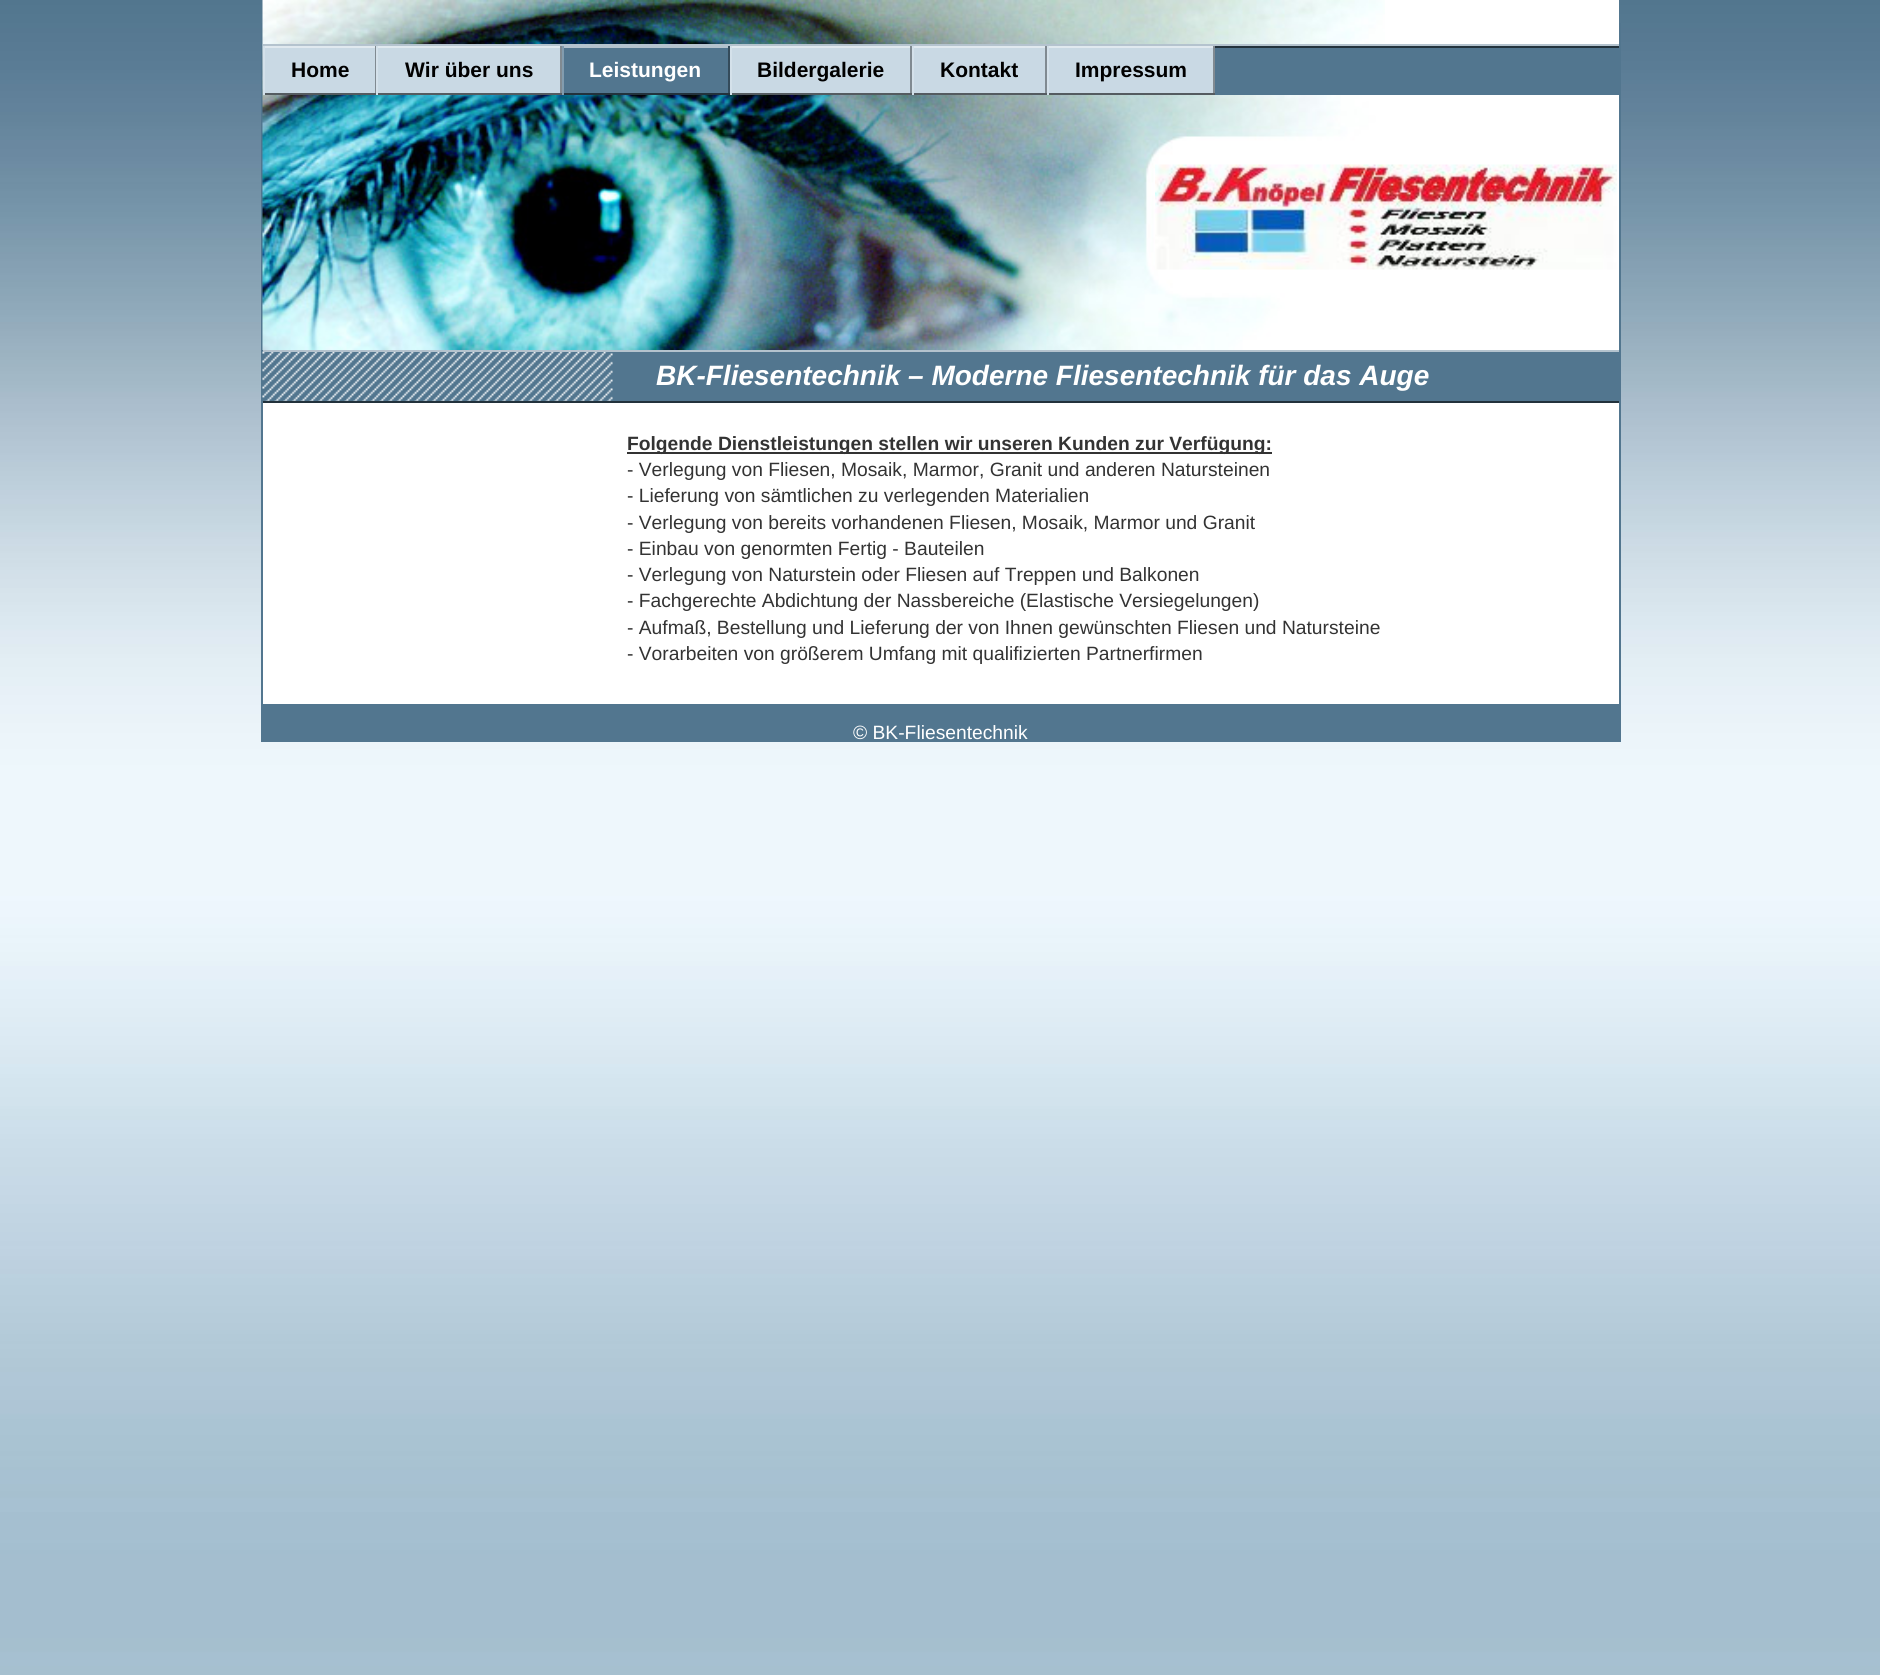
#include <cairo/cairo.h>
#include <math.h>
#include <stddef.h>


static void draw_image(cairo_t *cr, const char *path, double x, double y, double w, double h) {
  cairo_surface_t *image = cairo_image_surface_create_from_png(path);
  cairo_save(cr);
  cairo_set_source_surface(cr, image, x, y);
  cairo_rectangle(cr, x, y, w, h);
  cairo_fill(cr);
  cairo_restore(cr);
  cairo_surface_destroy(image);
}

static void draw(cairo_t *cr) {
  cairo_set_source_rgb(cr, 1, 1, 1);
  cairo_paint(cr);
  draw_image(cr, "images/1.png", 0, 0, 1880, 1675);
  cairo_set_source_rgb(cr, 1, 1, 1);
  cairo_rectangle(cr, 263, 0, 1356, 704);
  cairo_fill(cr);
  cairo_set_source_rgb(cr, 82 / 255.0, 118 / 255.0, 143 / 255.0);
  cairo_rectangle(cr, 1619, 23, 2, 719);
  cairo_fill(cr);
  cairo_rectangle(cr, 261, 23, 2, 719);
  cairo_fill(cr);
  draw_image(cr, "images/2.png", 262, 0, 1123, 350);
  draw_image(cr, "images/3.png", 1155, 164, 462, 106);
  cairo_rectangle(cr, 564, 48, 1055, 47);
  cairo_fill(cr);
  cairo_set_source_rgb(cr, 180 / 255.0, 195 / 255.0, 206 / 255.0);
  cairo_rectangle(cr, 263, 44, 1356, 2);
  cairo_fill(cr);
  cairo_set_source_rgb(cr, 34 / 255.0, 50 / 255.0, 60 / 255.0);
  cairo_rectangle(cr, 1215, 46, 404, 2);
  cairo_fill(cr);
  cairo_set_source_rgb(cr, 201 / 255.0, 217 / 255.0, 228 / 255.0);
  cairo_rectangle(cr, 265, 48, 110, 45);
  cairo_fill(cr);
  cairo_set_source_rgb(cr, 224 / 255.0, 233 / 255.0, 239 / 255.0);
  cairo_rectangle(cr, 263, 46, 299, 2);
  cairo_fill(cr);
  cairo_set_source_rgb(cr, 128 / 255.0, 138 / 255.0, 145 / 255.0);
  cairo_rectangle(cr, 375, 46, 1, 49);
  cairo_fill(cr);
  cairo_set_source_rgb(cr, 84 / 255.0, 91 / 255.0, 96 / 255.0);
  cairo_rectangle(cr, 263, 93, 113, 2);
  cairo_fill(cr);
  cairo_set_source_rgb(cr, 212 / 255.0, 225 / 255.0, 234 / 255.0);
  cairo_rectangle(cr, 263, 46, 2, 49);
  cairo_fill(cr);
  cairo_set_source_rgb(cr, 201 / 255.0, 217 / 255.0, 228 / 255.0);
  cairo_rectangle(cr, 378, 48, 182, 45);
  cairo_fill(cr);
  cairo_set_source_rgb(cr, 128 / 255.0, 138 / 255.0, 145 / 255.0);
  cairo_rectangle(cr, 560, 46, 2, 49);
  cairo_fill(cr);
  cairo_set_source_rgb(cr, 84 / 255.0, 91 / 255.0, 96 / 255.0);
  cairo_rectangle(cr, 376, 93, 186, 2);
  cairo_fill(cr);
  cairo_set_source_rgb(cr, 212 / 255.0, 225 / 255.0, 234 / 255.0);
  cairo_rectangle(cr, 376, 46, 2, 49);
  cairo_fill(cr);
  cairo_set_source_rgb(cr, 180 / 255.0, 195 / 255.0, 206 / 255.0);
  cairo_rectangle(cr, 562, 46, 168, 2);
  cairo_fill(cr);
  cairo_set_source_rgb(cr, 52 / 255.0, 75 / 255.0, 91 / 255.0);
  cairo_rectangle(cr, 728, 46, 2, 49);
  cairo_fill(cr);
  cairo_set_source_rgb(cr, 34 / 255.0, 50 / 255.0, 60 / 255.0);
  cairo_rectangle(cr, 562, 93, 168, 2);
  cairo_fill(cr);
  cairo_set_source_rgb(cr, 130 / 255.0, 156 / 255.0, 174 / 255.0);
  cairo_rectangle(cr, 562, 46, 2, 49);
  cairo_fill(cr);
  cairo_set_source_rgb(cr, 201 / 255.0, 217 / 255.0, 228 / 255.0);
  cairo_rectangle(cr, 732, 48, 178, 45);
  cairo_fill(cr);
  cairo_set_source_rgb(cr, 224 / 255.0, 233 / 255.0, 239 / 255.0);
  cairo_rectangle(cr, 730, 46, 485, 2);
  cairo_fill(cr);
  cairo_set_source_rgb(cr, 128 / 255.0, 138 / 255.0, 145 / 255.0);
  cairo_rectangle(cr, 910, 46, 2, 49);
  cairo_fill(cr);
  cairo_set_source_rgb(cr, 84 / 255.0, 91 / 255.0, 96 / 255.0);
  cairo_rectangle(cr, 730, 93, 182, 2);
  cairo_fill(cr);
  cairo_set_source_rgb(cr, 212 / 255.0, 225 / 255.0, 234 / 255.0);
  cairo_rectangle(cr, 730, 46, 2, 49);
  cairo_fill(cr);
  cairo_set_source_rgb(cr, 201 / 255.0, 217 / 255.0, 228 / 255.0);
  cairo_rectangle(cr, 914, 48, 131, 45);
  cairo_fill(cr);
  cairo_set_source_rgb(cr, 128 / 255.0, 138 / 255.0, 145 / 255.0);
  cairo_rectangle(cr, 1045, 46, 2, 49);
  cairo_fill(cr);
  cairo_set_source_rgb(cr, 84 / 255.0, 91 / 255.0, 96 / 255.0);
  cairo_rectangle(cr, 912, 93, 135, 2);
  cairo_fill(cr);
  cairo_set_source_rgb(cr, 212 / 255.0, 225 / 255.0, 234 / 255.0);
  cairo_rectangle(cr, 912, 46, 2, 49);
  cairo_fill(cr);
  cairo_set_source_rgb(cr, 201 / 255.0, 217 / 255.0, 228 / 255.0);
  cairo_rectangle(cr, 1049, 48, 164, 45);
  cairo_fill(cr);
  cairo_set_source_rgb(cr, 128 / 255.0, 138 / 255.0, 145 / 255.0);
  cairo_rectangle(cr, 1213, 46, 2, 49);
  cairo_fill(cr);
  cairo_set_source_rgb(cr, 84 / 255.0, 91 / 255.0, 96 / 255.0);
  cairo_rectangle(cr, 1047, 93, 168, 2);
  cairo_fill(cr);
  cairo_set_source_rgb(cr, 212 / 255.0, 225 / 255.0, 234 / 255.0);
  cairo_rectangle(cr, 1047, 46, 2, 49);
  cairo_fill(cr);
  cairo_set_source_rgb(cr, 82 / 255.0, 118 / 255.0, 143 / 255.0);
  cairo_rectangle(cr, 263, 352, 1356, 49);
  cairo_fill(cr);
  draw_image(cr, "images/4.png", 262, 351, 351, 50);
  cairo_set_source_rgb(cr, 180 / 255.0, 195 / 255.0, 206 / 255.0);
  cairo_rectangle(cr, 263, 350, 1356, 2);
  cairo_fill(cr);
  cairo_set_source_rgb(cr, 34 / 255.0, 50 / 255.0, 60 / 255.0);
  cairo_rectangle(cr, 263, 401, 1356, 2);
  cairo_fill(cr);
  cairo_set_source_rgb(cr, 51 / 255.0, 51 / 255.0, 51 / 255.0);
  cairo_rectangle(cr, 627, 452, 645, 2);
  cairo_fill(cr);
  cairo_set_source_rgb(cr, 82 / 255.0, 118 / 255.0, 143 / 255.0);
  cairo_rectangle(cr, 263, 704, 1356, 38);
  cairo_fill(cr);
  cairo_select_font_face(cr, "Liberation Sans", CAIRO_FONT_SLANT_NORMAL, CAIRO_FONT_WEIGHT_BOLD);
  cairo_set_font_size(cr, 21);
  cairo_set_source_rgb(cr, 0, 0, 0);
  cairo_move_to(cr, 291, 77);
  cairo_show_text(cr, "Home");
  cairo_move_to(cr, 405, 77);
  cairo_show_text(cr, "Wir über uns");
  cairo_set_source_rgb(cr, 1, 1, 1);
  cairo_move_to(cr, 589, 77);
  cairo_show_text(cr, "Leistungen");
  cairo_set_source_rgb(cr, 0, 0, 0);
  cairo_move_to(cr, 757, 77);
  cairo_show_text(cr, "Bildergalerie");
  cairo_move_to(cr, 940, 77);
  cairo_show_text(cr, "Kontakt");
  cairo_move_to(cr, 1075, 77);
  cairo_show_text(cr, "Impressum");
  cairo_select_font_face(cr, "Liberation Sans", CAIRO_FONT_SLANT_ITALIC, CAIRO_FONT_WEIGHT_BOLD);
  cairo_set_font_size(cr, 28);
  cairo_set_source_rgb(cr, 1, 1, 1);
  cairo_move_to(cr, 656, 385);
  cairo_show_text(cr, "BK-Fliesentechnik – Moderne Fliesentechnik für das Auge");
  cairo_select_font_face(cr, "Liberation Sans", CAIRO_FONT_SLANT_NORMAL, CAIRO_FONT_WEIGHT_BOLD);
  cairo_set_font_size(cr, 19.25);
  cairo_set_source_rgb(cr, 51 / 255.0, 51 / 255.0, 51 / 255.0);
  cairo_move_to(cr, 627, 450);
  cairo_show_text(cr, "Folgende Dienstleistungen stellen wir unseren Kunden zur Verfügung:");
  cairo_select_font_face(cr, "Liberation Sans", CAIRO_FONT_SLANT_NORMAL, CAIRO_FONT_WEIGHT_NORMAL);
  cairo_move_to(cr, 627, 476);
  cairo_show_text(cr, "- Verlegung von Fliesen, Mosaik, Marmor, Granit und anderen Natursteinen");
  cairo_move_to(cr, 627, 502);
  cairo_show_text(cr, "- Lieferung von sämtlichen zu verlegenden Materialien");
  cairo_move_to(cr, 627, 529);
  cairo_show_text(cr, "- Verlegung von bereits vorhandenen Fliesen, Mosaik, Marmor und Granit");
  cairo_move_to(cr, 627, 555);
  cairo_show_text(cr, "- Einbau von genormten Fertig - Bauteilen");
  cairo_move_to(cr, 627, 581);
  cairo_show_text(cr, "- Verlegung von Naturstein oder Fliesen auf Treppen und Balkonen");
  cairo_move_to(cr, 627, 607);
  cairo_show_text(cr, "- Fachgerechte Abdichtung der Nassbereiche (Elastische Versiegelungen)");
  cairo_move_to(cr, 627, 634);
  cairo_show_text(cr, "- Aufmaß, Bestellung und Lieferung der von Ihnen gewünschten Fliesen und Natursteine");
  cairo_move_to(cr, 627, 660);
  cairo_show_text(cr, "- Vorarbeiten von größerem Umfang mit qualifizierten Partnerfirmen");
  cairo_set_source_rgb(cr, 1, 1, 1);
  cairo_move_to(cr, 853, 739);
  cairo_show_text(cr, "© BK-Fliesentechnik");
}

int main(void) {
  cairo_surface_t *surface = cairo_image_surface_create(CAIRO_FORMAT_RGB24, 1880, 1675);
  cairo_t *cr = cairo_create(surface);
  cairo_font_options_t *options = cairo_font_options_create();
  cairo_font_options_set_hint_metrics(options, CAIRO_HINT_METRICS_OFF);
  cairo_font_options_set_hint_style(options, CAIRO_HINT_STYLE_NONE);
  cairo_set_font_options(cr, options);
  cairo_set_miter_limit(cr, 4);
  draw(cr);
  cairo_surface_write_to_png(surface, "out.png");
  cairo_font_options_destroy(options);
  cairo_destroy(cr);
  cairo_surface_destroy(surface);
  return 0;
}
